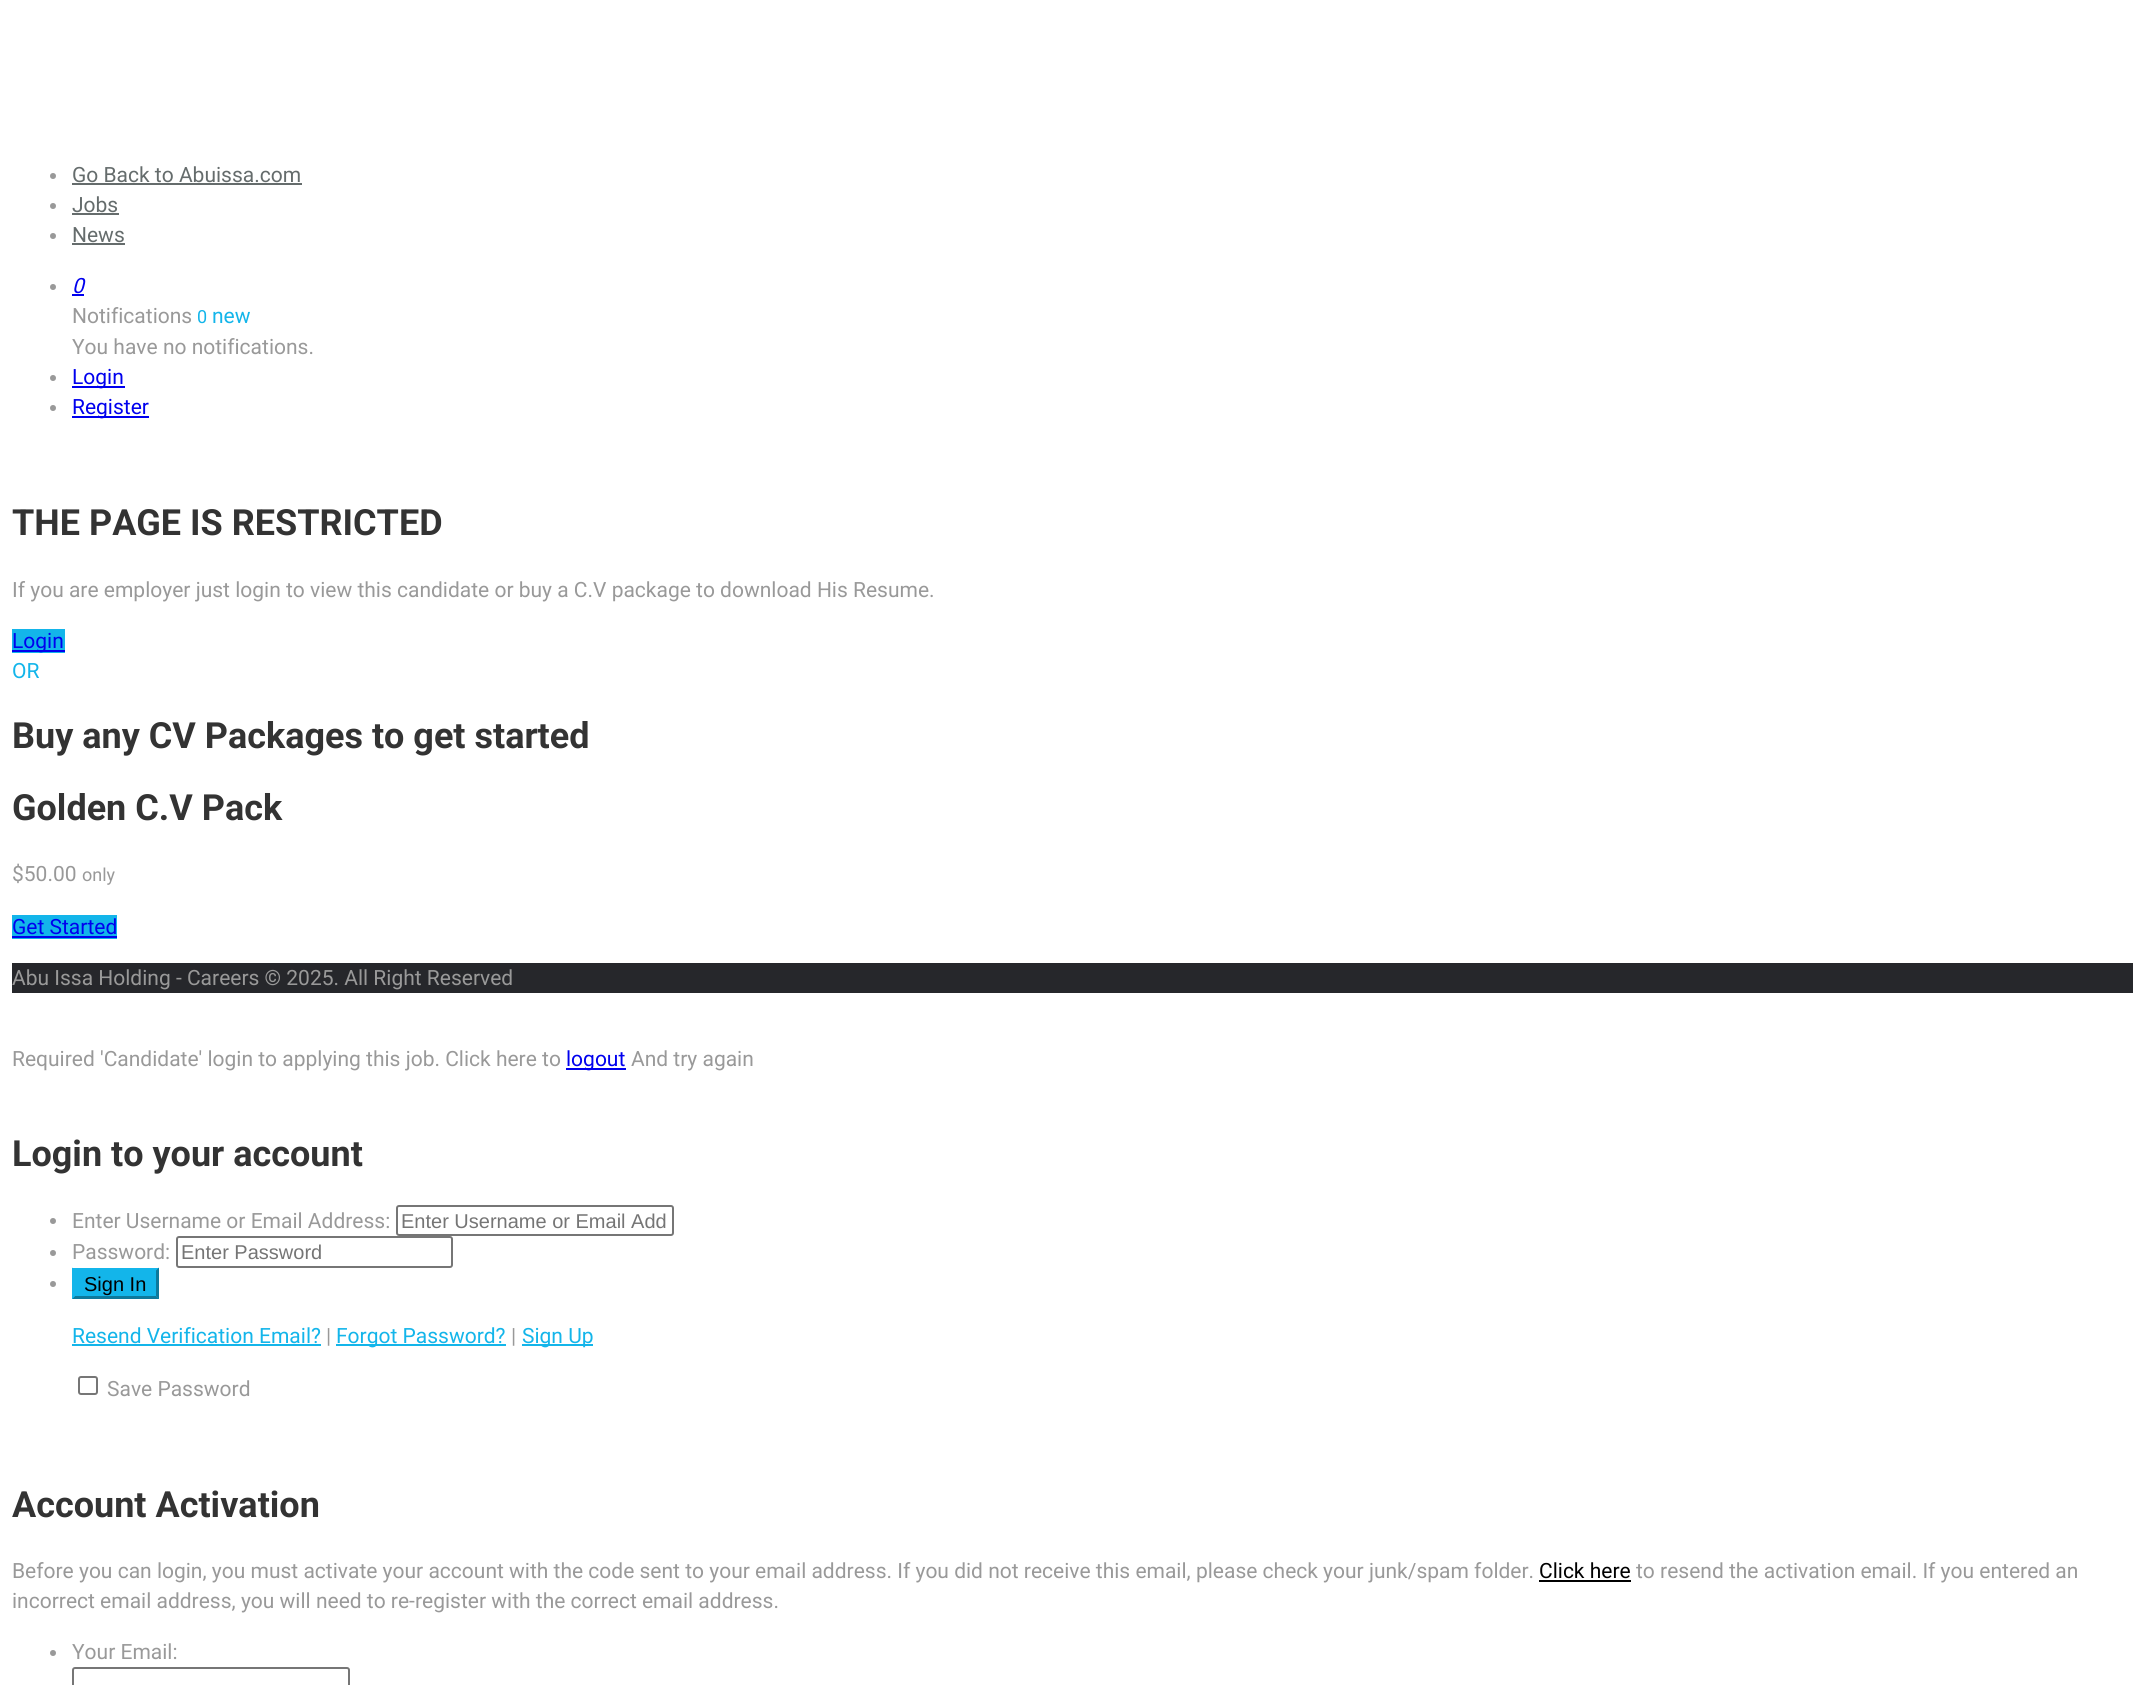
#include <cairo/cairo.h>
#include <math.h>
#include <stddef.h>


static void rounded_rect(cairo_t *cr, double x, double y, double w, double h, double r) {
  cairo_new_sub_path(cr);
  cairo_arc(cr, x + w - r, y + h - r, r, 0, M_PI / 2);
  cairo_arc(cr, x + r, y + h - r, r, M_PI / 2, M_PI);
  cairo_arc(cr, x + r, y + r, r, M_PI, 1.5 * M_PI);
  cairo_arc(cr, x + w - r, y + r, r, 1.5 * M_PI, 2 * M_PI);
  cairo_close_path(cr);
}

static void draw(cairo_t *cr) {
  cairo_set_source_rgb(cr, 1, 1, 1);
  cairo_paint(cr);
  cairo_set_source_rgb(cr, 153 / 255.0, 153 / 255.0, 153 / 255.0);
  cairo_arc(cr, 53, 176, 3, 0, 2 * M_PI);
  cairo_fill(cr);
  cairo_set_source_rgb(cr, 101 / 255.0, 108 / 255.0, 108 / 255.0);
  cairo_rectangle(cr, 72, 183, 230, 2);
  cairo_fill(cr);
  cairo_set_source_rgb(cr, 153 / 255.0, 153 / 255.0, 153 / 255.0);
  cairo_arc(cr, 53, 206, 3, 0, 2 * M_PI);
  cairo_fill(cr);
  cairo_set_source_rgb(cr, 101 / 255.0, 108 / 255.0, 108 / 255.0);
  cairo_rectangle(cr, 72, 213, 47, 2);
  cairo_fill(cr);
  cairo_set_source_rgb(cr, 153 / 255.0, 153 / 255.0, 153 / 255.0);
  cairo_arc(cr, 53, 236, 3, 0, 2 * M_PI);
  cairo_fill(cr);
  cairo_set_source_rgb(cr, 101 / 255.0, 108 / 255.0, 108 / 255.0);
  cairo_rectangle(cr, 72, 243, 53, 2);
  cairo_fill(cr);
  cairo_set_source_rgb(cr, 153 / 255.0, 153 / 255.0, 153 / 255.0);
  cairo_arc(cr, 53, 287, 3, 0, 2 * M_PI);
  cairo_fill(cr);
  cairo_set_source_rgb(cr, 0, 0, 238 / 255.0);
  cairo_rectangle(cr, 72, 294, 12, 2);
  cairo_fill(cr);
  cairo_set_source_rgb(cr, 153 / 255.0, 153 / 255.0, 153 / 255.0);
  cairo_arc(cr, 53, 378, 3, 0, 2 * M_PI);
  cairo_fill(cr);
  cairo_set_source_rgb(cr, 0, 0, 238 / 255.0);
  cairo_rectangle(cr, 72, 386, 53, 2);
  cairo_fill(cr);
  cairo_set_source_rgb(cr, 153 / 255.0, 153 / 255.0, 153 / 255.0);
  cairo_arc(cr, 53, 408, 3, 0, 2 * M_PI);
  cairo_fill(cr);
  cairo_set_source_rgb(cr, 0, 0, 238 / 255.0);
  cairo_rectangle(cr, 72, 416, 77, 2);
  cairo_fill(cr);
  cairo_set_source_rgb(cr, 19 / 255.0, 181 / 255.0, 234 / 255.0);
  cairo_rectangle(cr, 12, 629, 53, 24);
  cairo_fill(cr);
  cairo_set_source_rgb(cr, 0, 0, 238 / 255.0);
  cairo_rectangle(cr, 12, 650, 53, 2);
  cairo_fill(cr);
  cairo_set_source_rgb(cr, 19 / 255.0, 181 / 255.0, 234 / 255.0);
  cairo_rectangle(cr, 12, 915, 105, 24);
  cairo_fill(cr);
  cairo_set_source_rgb(cr, 0, 0, 238 / 255.0);
  cairo_rectangle(cr, 12, 936, 105, 2);
  cairo_fill(cr);
  cairo_set_source_rgb(cr, 38 / 255.0, 39 / 255.0, 43 / 255.0);
  cairo_rectangle(cr, 12, 963, 2121, 30);
  cairo_fill(cr);
  cairo_set_source_rgb(cr, 0, 0, 238 / 255.0);
  cairo_rectangle(cr, 566, 1068, 60, 2);
  cairo_fill(cr);
  cairo_set_source_rgb(cr, 153 / 255.0, 153 / 255.0, 153 / 255.0);
  cairo_arc(cr, 53, 1221, 3, 0, 2 * M_PI);
  cairo_fill(cr);
  rounded_rect(cr, 397, 1206, 276, 29, 2);
  cairo_set_source_rgb(cr, 118 / 255.0, 118 / 255.0, 118 / 255.0);
  cairo_stroke(cr);
  cairo_set_source_rgb(cr, 153 / 255.0, 153 / 255.0, 153 / 255.0);
  cairo_arc(cr, 53, 1253, 3, 0, 2 * M_PI);
  cairo_fill(cr);
  rounded_rect(cr, 177, 1237, 275, 30, 2);
  cairo_set_source_rgb(cr, 118 / 255.0, 118 / 255.0, 118 / 255.0);
  cairo_stroke(cr);
  cairo_set_source_rgb(cr, 153 / 255.0, 153 / 255.0, 153 / 255.0);
  cairo_arc(cr, 53, 1284, 3, 0, 2 * M_PI);
  cairo_fill(cr);
  cairo_set_source_rgb(cr, 19 / 255.0, 181 / 255.0, 234 / 255.0);
  cairo_rectangle(cr, 72, 1268, 87, 31);
  cairo_fill(cr);
  cairo_set_source_rgb(cr, 13 / 255.0, 121 / 255.0, 156 / 255.0);
  cairo_new_path(cr);
  cairo_move_to(cr, 159, 1267.5);
  cairo_line_to(cr, 159, 1299);
  cairo_line_to(cr, 156, 1296);
  cairo_line_to(cr, 156, 1270.5);
  cairo_close_path(cr);
  cairo_fill(cr);
  cairo_new_path(cr);
  cairo_move_to(cr, 159, 1299);
  cairo_line_to(cr, 72, 1299);
  cairo_line_to(cr, 75, 1296);
  cairo_line_to(cr, 156, 1296);
  cairo_close_path(cr);
  cairo_fill(cr);
  cairo_set_source_rgb(cr, 19 / 255.0, 181 / 255.0, 234 / 255.0);
  cairo_new_path(cr);
  cairo_move_to(cr, 72, 1299);
  cairo_line_to(cr, 72, 1267.5);
  cairo_line_to(cr, 75, 1270.5);
  cairo_line_to(cr, 75, 1296);
  cairo_close_path(cr);
  cairo_fill(cr);
  cairo_rectangle(cr, 72, 1344, 249, 2);
  cairo_fill(cr);
  cairo_rectangle(cr, 336, 1344, 170, 2);
  cairo_fill(cr);
  cairo_rectangle(cr, 522, 1344, 71, 2);
  cairo_fill(cr);
  rounded_rect(cr, 79, 1377, 18, 17, 2);
  cairo_set_source_rgb(cr, 118 / 255.0, 118 / 255.0, 118 / 255.0);
  cairo_stroke(cr);
  cairo_set_source_rgb(cr, 0, 0, 0);
  cairo_rectangle(cr, 1539, 1580, 92, 2);
  cairo_fill(cr);
  cairo_set_source_rgb(cr, 153 / 255.0, 153 / 255.0, 153 / 255.0);
  cairo_arc(cr, 53, 1653, 3, 0, 2 * M_PI);
  cairo_fill(cr);
  rounded_rect(cr, 73, 1668, 276, 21, 2);
  cairo_set_source_rgb(cr, 118 / 255.0, 118 / 255.0, 118 / 255.0);
  cairo_stroke(cr);
  cairo_select_font_face(cr, "Roboto", CAIRO_FONT_SLANT_NORMAL, CAIRO_FONT_WEIGHT_NORMAL);
  cairo_set_font_size(cr, 21);
  cairo_set_source_rgb(cr, 101 / 255.0, 108 / 255.0, 108 / 255.0);
  cairo_move_to(cr, 72, 182);
  cairo_show_text(cr, "Go Back to Abuissa.com");
  cairo_move_to(cr, 72, 212);
  cairo_show_text(cr, "Jobs");
  cairo_move_to(cr, 72, 242);
  cairo_show_text(cr, "News");
  cairo_select_font_face(cr, "Roboto", CAIRO_FONT_SLANT_ITALIC, CAIRO_FONT_WEIGHT_NORMAL);
  cairo_set_source_rgb(cr, 0, 0, 238 / 255.0);
  cairo_move_to(cr, 72, 293);
  cairo_show_text(cr, "0");
  cairo_select_font_face(cr, "Roboto", CAIRO_FONT_SLANT_NORMAL, CAIRO_FONT_WEIGHT_NORMAL);
  cairo_set_source_rgb(cr, 153 / 255.0, 153 / 255.0, 153 / 255.0);
  cairo_move_to(cr, 72, 323);
  cairo_show_text(cr, "Notifications");
  cairo_set_font_size(cr, 18);
  cairo_set_source_rgb(cr, 19 / 255.0, 181 / 255.0, 234 / 255.0);
  cairo_move_to(cr, 197, 323);
  cairo_show_text(cr, "0");
  cairo_set_font_size(cr, 21);
  cairo_move_to(cr, 212, 323);
  cairo_show_text(cr, "new");
  cairo_set_source_rgb(cr, 153 / 255.0, 153 / 255.0, 153 / 255.0);
  cairo_move_to(cr, 72, 354);
  cairo_show_text(cr, "You have no notifications.");
  cairo_set_source_rgb(cr, 0, 0, 238 / 255.0);
  cairo_move_to(cr, 72, 384);
  cairo_show_text(cr, "Login");
  cairo_move_to(cr, 72, 414);
  cairo_show_text(cr, "Register");
  cairo_select_font_face(cr, "Roboto", CAIRO_FONT_SLANT_NORMAL, CAIRO_FONT_WEIGHT_BOLD);
  cairo_set_font_size(cr, 36);
  cairo_set_source_rgb(cr, 51 / 255.0, 51 / 255.0, 51 / 255.0);
  cairo_move_to(cr, 12, 535);
  cairo_show_text(cr, "THE PAGE IS RESTRICTED");
  cairo_select_font_face(cr, "Roboto", CAIRO_FONT_SLANT_NORMAL, CAIRO_FONT_WEIGHT_NORMAL);
  cairo_set_font_size(cr, 21);
  cairo_set_source_rgb(cr, 153 / 255.0, 153 / 255.0, 153 / 255.0);
  cairo_move_to(cr, 12, 597);
  cairo_show_text(cr, "If you are employer just login to view this candidate or buy a C.V package to download His Resume.");
  cairo_set_source_rgb(cr, 0, 0, 238 / 255.0);
  cairo_move_to(cr, 12, 648);
  cairo_show_text(cr, "Login");
  cairo_set_source_rgb(cr, 19 / 255.0, 181 / 255.0, 234 / 255.0);
  cairo_move_to(cr, 12, 678);
  cairo_show_text(cr, "OR");
  cairo_select_font_face(cr, "Roboto", CAIRO_FONT_SLANT_NORMAL, CAIRO_FONT_WEIGHT_BOLD);
  cairo_set_font_size(cr, 36);
  cairo_set_source_rgb(cr, 51 / 255.0, 51 / 255.0, 51 / 255.0);
  cairo_move_to(cr, 12, 748);
  cairo_show_text(cr, "Buy any CV Packages to get started");
  cairo_move_to(cr, 12, 820);
  cairo_show_text(cr, "Golden C.V Pack");
  cairo_select_font_face(cr, "Roboto", CAIRO_FONT_SLANT_NORMAL, CAIRO_FONT_WEIGHT_NORMAL);
  cairo_set_font_size(cr, 21);
  cairo_set_source_rgb(cr, 153 / 255.0, 153 / 255.0, 153 / 255.0);
  cairo_move_to(cr, 12, 881);
  cairo_show_text(cr, "$50.00");
  cairo_set_font_size(cr, 18);
  cairo_move_to(cr, 82, 881);
  cairo_show_text(cr, "only");
  cairo_set_font_size(cr, 21);
  cairo_set_source_rgb(cr, 0, 0, 238 / 255.0);
  cairo_move_to(cr, 12, 934);
  cairo_show_text(cr, "Get Started");
  cairo_set_source_rgb(cr, 153 / 255.0, 153 / 255.0, 153 / 255.0);
  cairo_move_to(cr, 12, 985);
  cairo_show_text(cr, "Abu Issa Holding - Careers © 2025. All Right Reserved");
  cairo_move_to(cr, 12, 1066);
  cairo_show_text(cr, "Required 'Candidate' login to applying this job. Click here to");
  cairo_set_source_rgb(cr, 0, 0, 238 / 255.0);
  cairo_move_to(cr, 566, 1066);
  cairo_show_text(cr, "logout");
  cairo_set_source_rgb(cr, 153 / 255.0, 153 / 255.0, 153 / 255.0);
  cairo_move_to(cr, 631, 1066);
  cairo_show_text(cr, "And try again");
  cairo_select_font_face(cr, "Roboto", CAIRO_FONT_SLANT_NORMAL, CAIRO_FONT_WEIGHT_BOLD);
  cairo_set_font_size(cr, 36);
  cairo_set_source_rgb(cr, 51 / 255.0, 51 / 255.0, 51 / 255.0);
  cairo_move_to(cr, 12, 1166);
  cairo_show_text(cr, "Login to your account");
  cairo_select_font_face(cr, "Roboto", CAIRO_FONT_SLANT_NORMAL, CAIRO_FONT_WEIGHT_NORMAL);
  cairo_set_font_size(cr, 21);
  cairo_set_source_rgb(cr, 153 / 255.0, 153 / 255.0, 153 / 255.0);
  cairo_move_to(cr, 72, 1228);
  cairo_show_text(cr, "Enter Username or Email Address:");
  cairo_select_font_face(cr, "Liberation Sans", CAIRO_FONT_SLANT_NORMAL, CAIRO_FONT_WEIGHT_NORMAL);
  cairo_set_font_size(cr, 20);
  cairo_set_source_rgb(cr, 117 / 255.0, 117 / 255.0, 117 / 255.0);
  cairo_move_to(cr, 401, 1228);
  cairo_show_text(cr, "Enter Username or Email Add");
  cairo_select_font_face(cr, "Roboto", CAIRO_FONT_SLANT_NORMAL, CAIRO_FONT_WEIGHT_NORMAL);
  cairo_set_font_size(cr, 21);
  cairo_set_source_rgb(cr, 153 / 255.0, 153 / 255.0, 153 / 255.0);
  cairo_move_to(cr, 72, 1259);
  cairo_show_text(cr, "Password:");
  cairo_select_font_face(cr, "Liberation Sans", CAIRO_FONT_SLANT_NORMAL, CAIRO_FONT_WEIGHT_NORMAL);
  cairo_set_font_size(cr, 20);
  cairo_set_source_rgb(cr, 117 / 255.0, 117 / 255.0, 117 / 255.0);
  cairo_move_to(cr, 181, 1259);
  cairo_show_text(cr, "Enter Password");
  cairo_set_source_rgb(cr, 0, 0, 0);
  cairo_move_to(cr, 84, 1291);
  cairo_show_text(cr, "Sign In");
  cairo_select_font_face(cr, "Roboto", CAIRO_FONT_SLANT_NORMAL, CAIRO_FONT_WEIGHT_NORMAL);
  cairo_set_font_size(cr, 21);
  cairo_set_source_rgb(cr, 19 / 255.0, 181 / 255.0, 234 / 255.0);
  cairo_move_to(cr, 72, 1343);
  cairo_show_text(cr, "Resend Verification Email?");
  cairo_set_source_rgb(cr, 153 / 255.0, 153 / 255.0, 153 / 255.0);
  cairo_move_to(cr, 326, 1343);
  cairo_show_text(cr, "|");
  cairo_set_source_rgb(cr, 19 / 255.0, 181 / 255.0, 234 / 255.0);
  cairo_move_to(cr, 336, 1343);
  cairo_show_text(cr, "Forgot Password?");
  cairo_set_source_rgb(cr, 153 / 255.0, 153 / 255.0, 153 / 255.0);
  cairo_move_to(cr, 511, 1343);
  cairo_show_text(cr, "|");
  cairo_set_source_rgb(cr, 19 / 255.0, 181 / 255.0, 234 / 255.0);
  cairo_move_to(cr, 522, 1343);
  cairo_show_text(cr, "Sign Up");
  cairo_set_source_rgb(cr, 153 / 255.0, 153 / 255.0, 153 / 255.0);
  cairo_move_to(cr, 107, 1396);
  cairo_show_text(cr, "Save Password");
  cairo_select_font_face(cr, "Roboto", CAIRO_FONT_SLANT_NORMAL, CAIRO_FONT_WEIGHT_BOLD);
  cairo_set_font_size(cr, 36);
  cairo_set_source_rgb(cr, 51 / 255.0, 51 / 255.0, 51 / 255.0);
  cairo_move_to(cr, 12, 1517);
  cairo_show_text(cr, "Account Activation");
  cairo_select_font_face(cr, "Roboto", CAIRO_FONT_SLANT_NORMAL, CAIRO_FONT_WEIGHT_NORMAL);
  cairo_set_font_size(cr, 21);
  cairo_set_source_rgb(cr, 153 / 255.0, 153 / 255.0, 153 / 255.0);
  cairo_move_to(cr, 12, 1578);
  cairo_show_text(cr, "Before you can login, you must activate your account with the code sent to your email address. If you did not receive this email, please check your junk/spam folder.");
  cairo_set_source_rgb(cr, 0, 0, 0);
  cairo_move_to(cr, 1539, 1578);
  cairo_show_text(cr, "Click here");
  cairo_set_source_rgb(cr, 153 / 255.0, 153 / 255.0, 153 / 255.0);
  cairo_move_to(cr, 1636, 1578);
  cairo_show_text(cr, "to resend the activation email. If you entered an");
  cairo_move_to(cr, 12, 1608);
  cairo_show_text(cr, "incorrect email address, you will need to re-register with the correct email address.");
  cairo_move_to(cr, 72, 1659);
  cairo_show_text(cr, "Your Email:");
}

int main(void) {
  cairo_surface_t *surface = cairo_image_surface_create(CAIRO_FORMAT_RGB24, 2145, 1685);
  cairo_t *cr = cairo_create(surface);
  cairo_font_options_t *options = cairo_font_options_create();
  cairo_font_options_set_hint_metrics(options, CAIRO_HINT_METRICS_OFF);
  cairo_font_options_set_hint_style(options, CAIRO_HINT_STYLE_NONE);
  cairo_set_font_options(cr, options);
  cairo_set_miter_limit(cr, 4);
  draw(cr);
  cairo_surface_write_to_png(surface, "out.png");
  cairo_font_options_destroy(options);
  cairo_destroy(cr);
  cairo_surface_destroy(surface);
  return 0;
}
